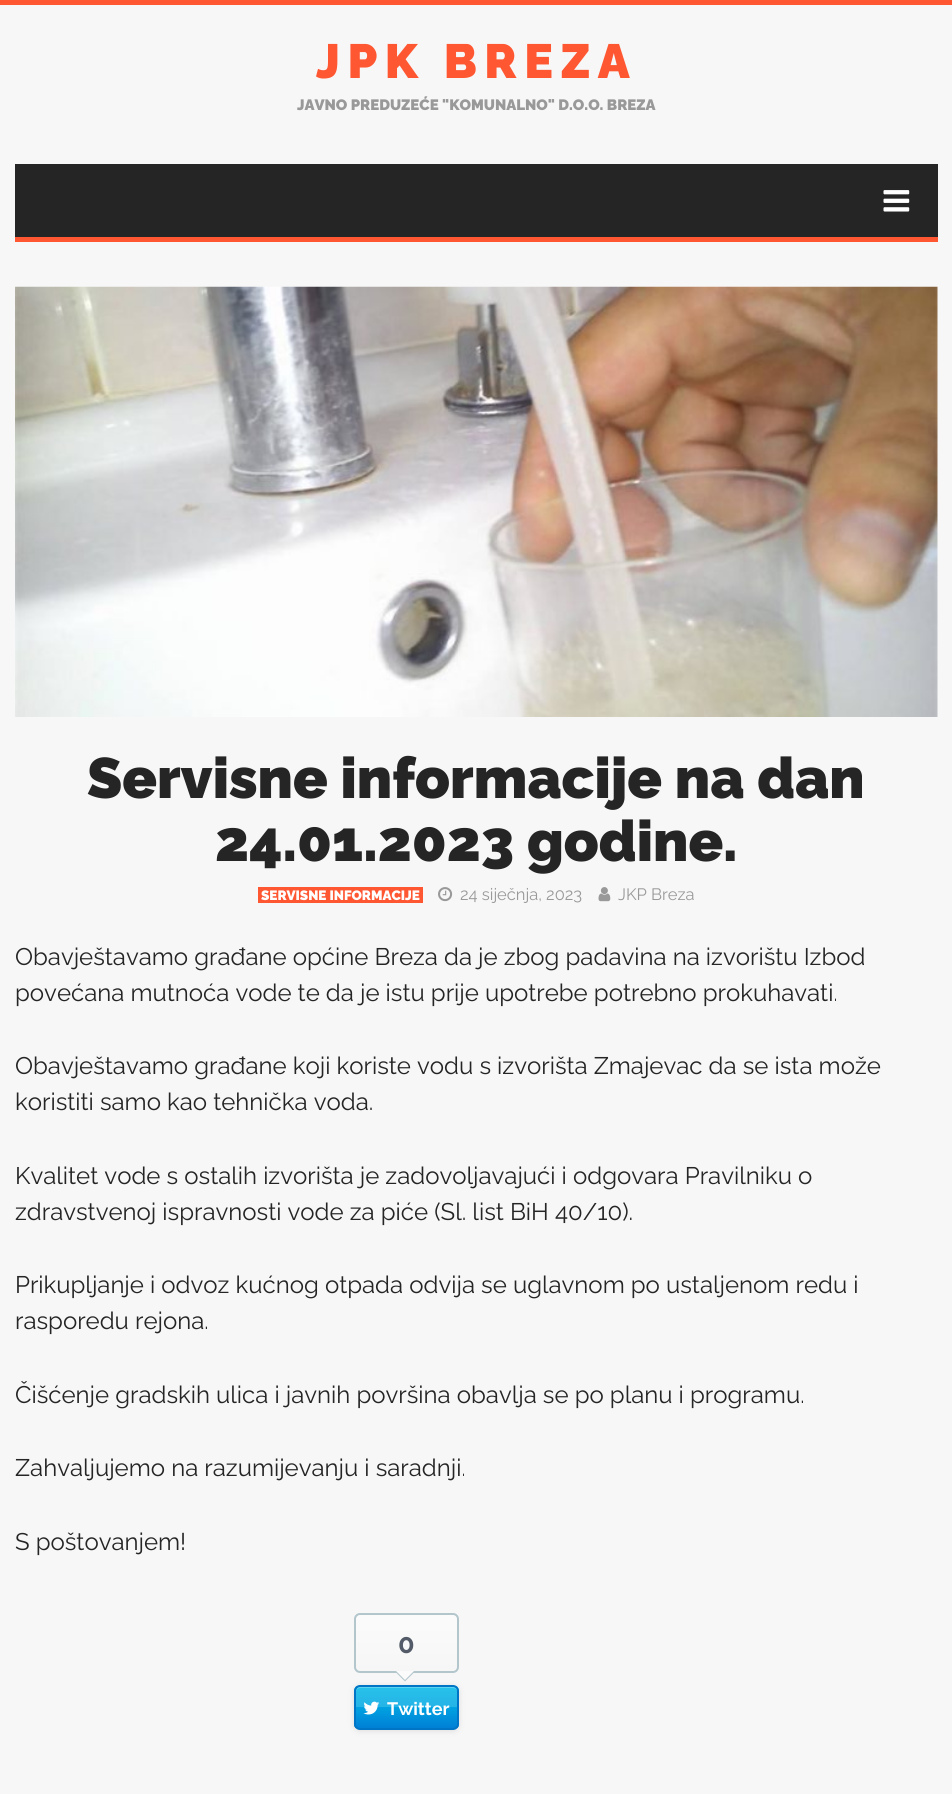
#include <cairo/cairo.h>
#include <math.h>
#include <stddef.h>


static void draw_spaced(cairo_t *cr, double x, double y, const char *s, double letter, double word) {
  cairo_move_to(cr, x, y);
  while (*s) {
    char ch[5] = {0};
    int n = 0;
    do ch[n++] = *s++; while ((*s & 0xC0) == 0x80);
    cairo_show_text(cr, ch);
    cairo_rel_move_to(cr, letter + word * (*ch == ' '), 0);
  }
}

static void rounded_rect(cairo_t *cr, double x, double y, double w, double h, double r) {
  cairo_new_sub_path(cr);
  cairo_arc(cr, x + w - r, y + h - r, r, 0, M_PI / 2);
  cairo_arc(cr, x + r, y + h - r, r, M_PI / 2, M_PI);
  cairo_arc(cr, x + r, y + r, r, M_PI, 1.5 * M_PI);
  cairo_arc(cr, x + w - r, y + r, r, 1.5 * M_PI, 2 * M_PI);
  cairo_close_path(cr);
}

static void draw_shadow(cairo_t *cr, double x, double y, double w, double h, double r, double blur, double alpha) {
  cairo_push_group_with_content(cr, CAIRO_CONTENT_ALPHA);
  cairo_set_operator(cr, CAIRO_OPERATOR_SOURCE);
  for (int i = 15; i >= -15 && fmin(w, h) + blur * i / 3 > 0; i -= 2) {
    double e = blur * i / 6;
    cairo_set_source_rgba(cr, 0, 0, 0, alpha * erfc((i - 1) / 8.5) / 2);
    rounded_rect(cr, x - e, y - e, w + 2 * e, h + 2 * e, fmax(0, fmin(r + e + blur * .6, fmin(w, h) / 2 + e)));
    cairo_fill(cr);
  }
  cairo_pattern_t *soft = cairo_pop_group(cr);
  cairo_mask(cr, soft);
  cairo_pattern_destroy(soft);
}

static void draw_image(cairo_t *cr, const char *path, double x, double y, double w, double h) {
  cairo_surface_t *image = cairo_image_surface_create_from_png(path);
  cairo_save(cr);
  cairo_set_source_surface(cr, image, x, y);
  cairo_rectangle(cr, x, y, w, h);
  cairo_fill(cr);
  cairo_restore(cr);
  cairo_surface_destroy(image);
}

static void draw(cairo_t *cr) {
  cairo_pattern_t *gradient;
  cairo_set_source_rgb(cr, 247 / 255.0, 247 / 255.0, 247 / 255.0);
  cairo_paint(cr);
  cairo_set_source_rgb(cr, 1, 87 / 255.0, 50 / 255.0);
  cairo_rectangle(cr, 0, 0, 952, 5);
  cairo_fill(cr);
  cairo_new_path(cr);
  cairo_move_to(cr, 15, 237);
  cairo_line_to(cr, 15, 242);
  cairo_line_to(cr, 938, 242);
  cairo_line_to(cr, 938, 168);
  cairo_line_to(cr, 938, 237);
  cairo_close_path(cr);
  cairo_fill(cr);
  cairo_set_source_rgb(cr, 37 / 255.0, 37 / 255.0, 37 / 255.0);
  cairo_rectangle(cr, 15, 164, 923, 73);
  cairo_fill(cr);
  draw_image(cr, "images/1.png", 883, 190, 27, 22);
  draw_image(cr, "images/2.png", 15, 286, 923, 431);
  cairo_set_source_rgb(cr, 1, 87 / 255.0, 50 / 255.0);
  cairo_rectangle(cr, 258, 887, 165, 16);
  cairo_fill(cr);
  draw_image(cr, "images/3.png", 438, 887, 15, 15);
  draw_image(cr, "images/4.png", 598, 887, 13, 15);
  cairo_save(cr);
  rounded_rect(cr, 354, 1613, 105, 60, 6);
  cairo_clip(cr);
  gradient = cairo_pattern_create_linear(407, 1614, 407, 1671);
  cairo_pattern_add_color_stop_rgba(gradient, 0, 251 / 255.0, 251 / 255.0, 251 / 255.0, 1);
  cairo_pattern_add_color_stop_rgba(gradient, 1, 246 / 255.0, 246 / 255.0, 246 / 255.0, 1);
  cairo_set_source(cr, gradient);
  cairo_pattern_destroy(gradient);
  cairo_rectangle(cr, 354, 1614, 105, 57);
  cairo_fill(cr);
  cairo_restore(cr);
  rounded_rect(cr, 355, 1614, 103, 58, 5);
  cairo_set_source_rgb(cr, 178 / 255.0, 198 / 255.0, 204 / 255.0);
  cairo_stroke(cr);
  cairo_new_path(cr);
  cairo_move_to(cr, 394.5, 1671);
  cairo_line_to(cr, 415.5, 1671);
  cairo_line_to(cr, 405, 1681.5);
  cairo_close_path(cr);
  cairo_fill(cr);
  cairo_set_source_rgb(cr, 251 / 255.0, 251 / 255.0, 251 / 255.0);
  cairo_new_path(cr);
  cairo_move_to(cr, 396, 1671);
  cairo_line_to(cr, 414, 1671);
  cairo_line_to(cr, 405, 1680);
  cairo_close_path(cr);
  cairo_fill(cr);
  cairo_set_source_rgb(cr, 221 / 255.0, 221 / 255.0, 221 / 255.0);
  draw_shadow(cr, 354, 1686, 105, 45, 6, 3, 1);
  cairo_save(cr);
  rounded_rect(cr, 354, 1685, 105, 45, 6);
  cairo_clip(cr);
  gradient = cairo_pattern_create_linear(407, 1686, 407, 1728);
  cairo_pattern_add_color_stop_rgba(gradient, 0, 38 / 255.0, 195 / 255.0, 235 / 255.0, 1);
  cairo_pattern_add_color_stop_rgba(gradient, 0.5, 38 / 255.0, 179 / 255.0, 230 / 255.0, 1);
  cairo_pattern_add_color_stop_rgba(gradient, 0.51, 0, 162 / 255.0, 225 / 255.0, 1);
  cairo_pattern_add_color_stop_rgba(gradient, 1, 0, 128 / 255.0, 214 / 255.0, 1);
  cairo_set_source(cr, gradient);
  cairo_pattern_destroy(gradient);
  cairo_rectangle(cr, 354, 1686, 105, 42);
  cairo_fill(cr);
  cairo_restore(cr);
  cairo_set_source_rgb(cr, 92 / 255.0, 211 / 255.0, 241 / 255.0);
  cairo_new_path(cr);
  cairo_move_to(cr, 360, 1688);
  cairo_line_to(cr, 453, 1688);
  cairo_curve_to(cr, 455, 1688, 458, 1690, 458, 1692);
  cairo_curve_to(cr, 458, 1682, 443, 1686, 438, 1686);
  cairo_line_to(cr, 376, 1686);
  cairo_curve_to(cr, 371, 1686, 356, 1682, 356, 1692);
  cairo_curve_to(cr, 356, 1690, 358, 1688, 360, 1688);
  cairo_close_path(cr);
  cairo_fill(cr);
  rounded_rect(cr, 355, 1686, 103, 43, 5);
  cairo_set_source_rgb(cr, 0, 117 / 255.0, 197 / 255.0);
  cairo_stroke(cr);
  draw_image(cr, "images/5.png", 363, 1701, 17, 14);
  cairo_select_font_face(cr, "Raleway Black", CAIRO_FONT_SLANT_NORMAL, CAIRO_FONT_WEIGHT_NORMAL);
  cairo_set_font_size(cr, 48);
  cairo_set_source_rgb(cr, 1, 87 / 255.0, 50 / 255.0);
  draw_spaced(cr, 316, 78, "JPK BREZA", 7.5, 0);
  cairo_set_font_size(cr, 15);
  cairo_set_source_rgb(cr, 153 / 255.0, 153 / 255.0, 153 / 255.0);
  cairo_move_to(cr, 297, 110);
  cairo_show_text(cr, "JAVNO PREDUZEĆE \"KOMUNALNO\" D.O.O. BREZA");
  cairo_set_font_size(cr, 57);
  cairo_set_source_rgb(cr, 37 / 255.0, 37 / 255.0, 37 / 255.0);
  cairo_move_to(cr, 87, 798);
  cairo_show_text(cr, "Servisne informacije na dan");
  cairo_move_to(cr, 215, 861);
  cairo_show_text(cr, "24.01.2023 godine.");
  cairo_set_font_size(cr, 13.5);
  cairo_set_source_rgb(cr, 1, 1, 1);
  cairo_move_to(cr, 261, 900);
  cairo_show_text(cr, "SERVISNE INFORMACIJE");
  cairo_select_font_face(cr, "Raleway", CAIRO_FONT_SLANT_NORMAL, CAIRO_FONT_WEIGHT_NORMAL);
  cairo_set_font_size(cr, 16.5);
  cairo_set_source_rgb(cr, 153 / 255.0, 153 / 255.0, 153 / 255.0);
  cairo_move_to(cr, 460, 900);
  cairo_show_text(cr, "24 siječnja, 2023");
  cairo_move_to(cr, 618, 900);
  cairo_show_text(cr, "JKP Breza");
  cairo_set_font_size(cr, 24);
  cairo_set_source_rgb(cr, 37 / 255.0, 37 / 255.0, 37 / 255.0);
  cairo_move_to(cr, 15, 965);
  cairo_show_text(cr, "Obavještavamo građane općine Breza da je zbog padavina na izvorištu Izbod");
  cairo_move_to(cr, 15, 1001);
  cairo_show_text(cr, "povećana mutnoća vode te da je istu prije upotrebe potrebno prokuhavati.");
  cairo_move_to(cr, 15, 1074);
  cairo_show_text(cr, "Obavještavamo građane koji koriste vodu s izvorišta Zmajevac da se ista može");
  cairo_move_to(cr, 15, 1110);
  cairo_show_text(cr, "koristiti samo kao tehnička voda.");
  cairo_move_to(cr, 15, 1184);
  cairo_show_text(cr, "Kvalitet vode s ostalih izvorišta je zadovoljavajući i odgovara Pravilniku o");
  cairo_move_to(cr, 15, 1220);
  cairo_show_text(cr, "zdravstvenoj ispravnosti vode za piće (Sl. list BiH 40/10).");
  cairo_move_to(cr, 15, 1293);
  cairo_show_text(cr, "Prikupljanje i odvoz kućnog otpada odvija se uglavnom po ustaljenom redu i");
  cairo_move_to(cr, 15, 1329);
  cairo_show_text(cr, "rasporedu rejona.");
  cairo_move_to(cr, 15, 1403);
  cairo_show_text(cr, "Čišćenje gradskih ulica i javnih površina obavlja se po planu i programu.");
  cairo_move_to(cr, 15, 1476);
  cairo_show_text(cr, "Zahvaljujemo na razumijevanju i saradnji.");
  cairo_move_to(cr, 15, 1550);
  cairo_show_text(cr, "S poštovanjem!");
  cairo_select_font_face(cr, "Raleway", CAIRO_FONT_SLANT_NORMAL, CAIRO_FONT_WEIGHT_BOLD);
  cairo_set_font_size(cr, 27);
  cairo_set_source_rgb(cr, 82 / 255.0, 91 / 255.0, 103 / 255.0);
  cairo_move_to(cr, 398, 1653);
  cairo_show_text(cr, "0");
  cairo_set_font_size(cr, 18);
  cairo_set_source_rgb(cr, 1, 1, 1);
  cairo_move_to(cr, 387, 1715);
  cairo_show_text(cr, "Twitter");
}

int main(void) {
  cairo_surface_t *surface = cairo_image_surface_create(CAIRO_FORMAT_RGB24, 952, 1794);
  cairo_t *cr = cairo_create(surface);
  cairo_font_options_t *options = cairo_font_options_create();
  cairo_font_options_set_hint_metrics(options, CAIRO_HINT_METRICS_OFF);
  cairo_font_options_set_hint_style(options, CAIRO_HINT_STYLE_NONE);
  cairo_set_font_options(cr, options);
  cairo_set_miter_limit(cr, 4);
  draw(cr);
  cairo_surface_write_to_png(surface, "out.png");
  cairo_font_options_destroy(options);
  cairo_destroy(cr);
  cairo_surface_destroy(surface);
  return 0;
}
